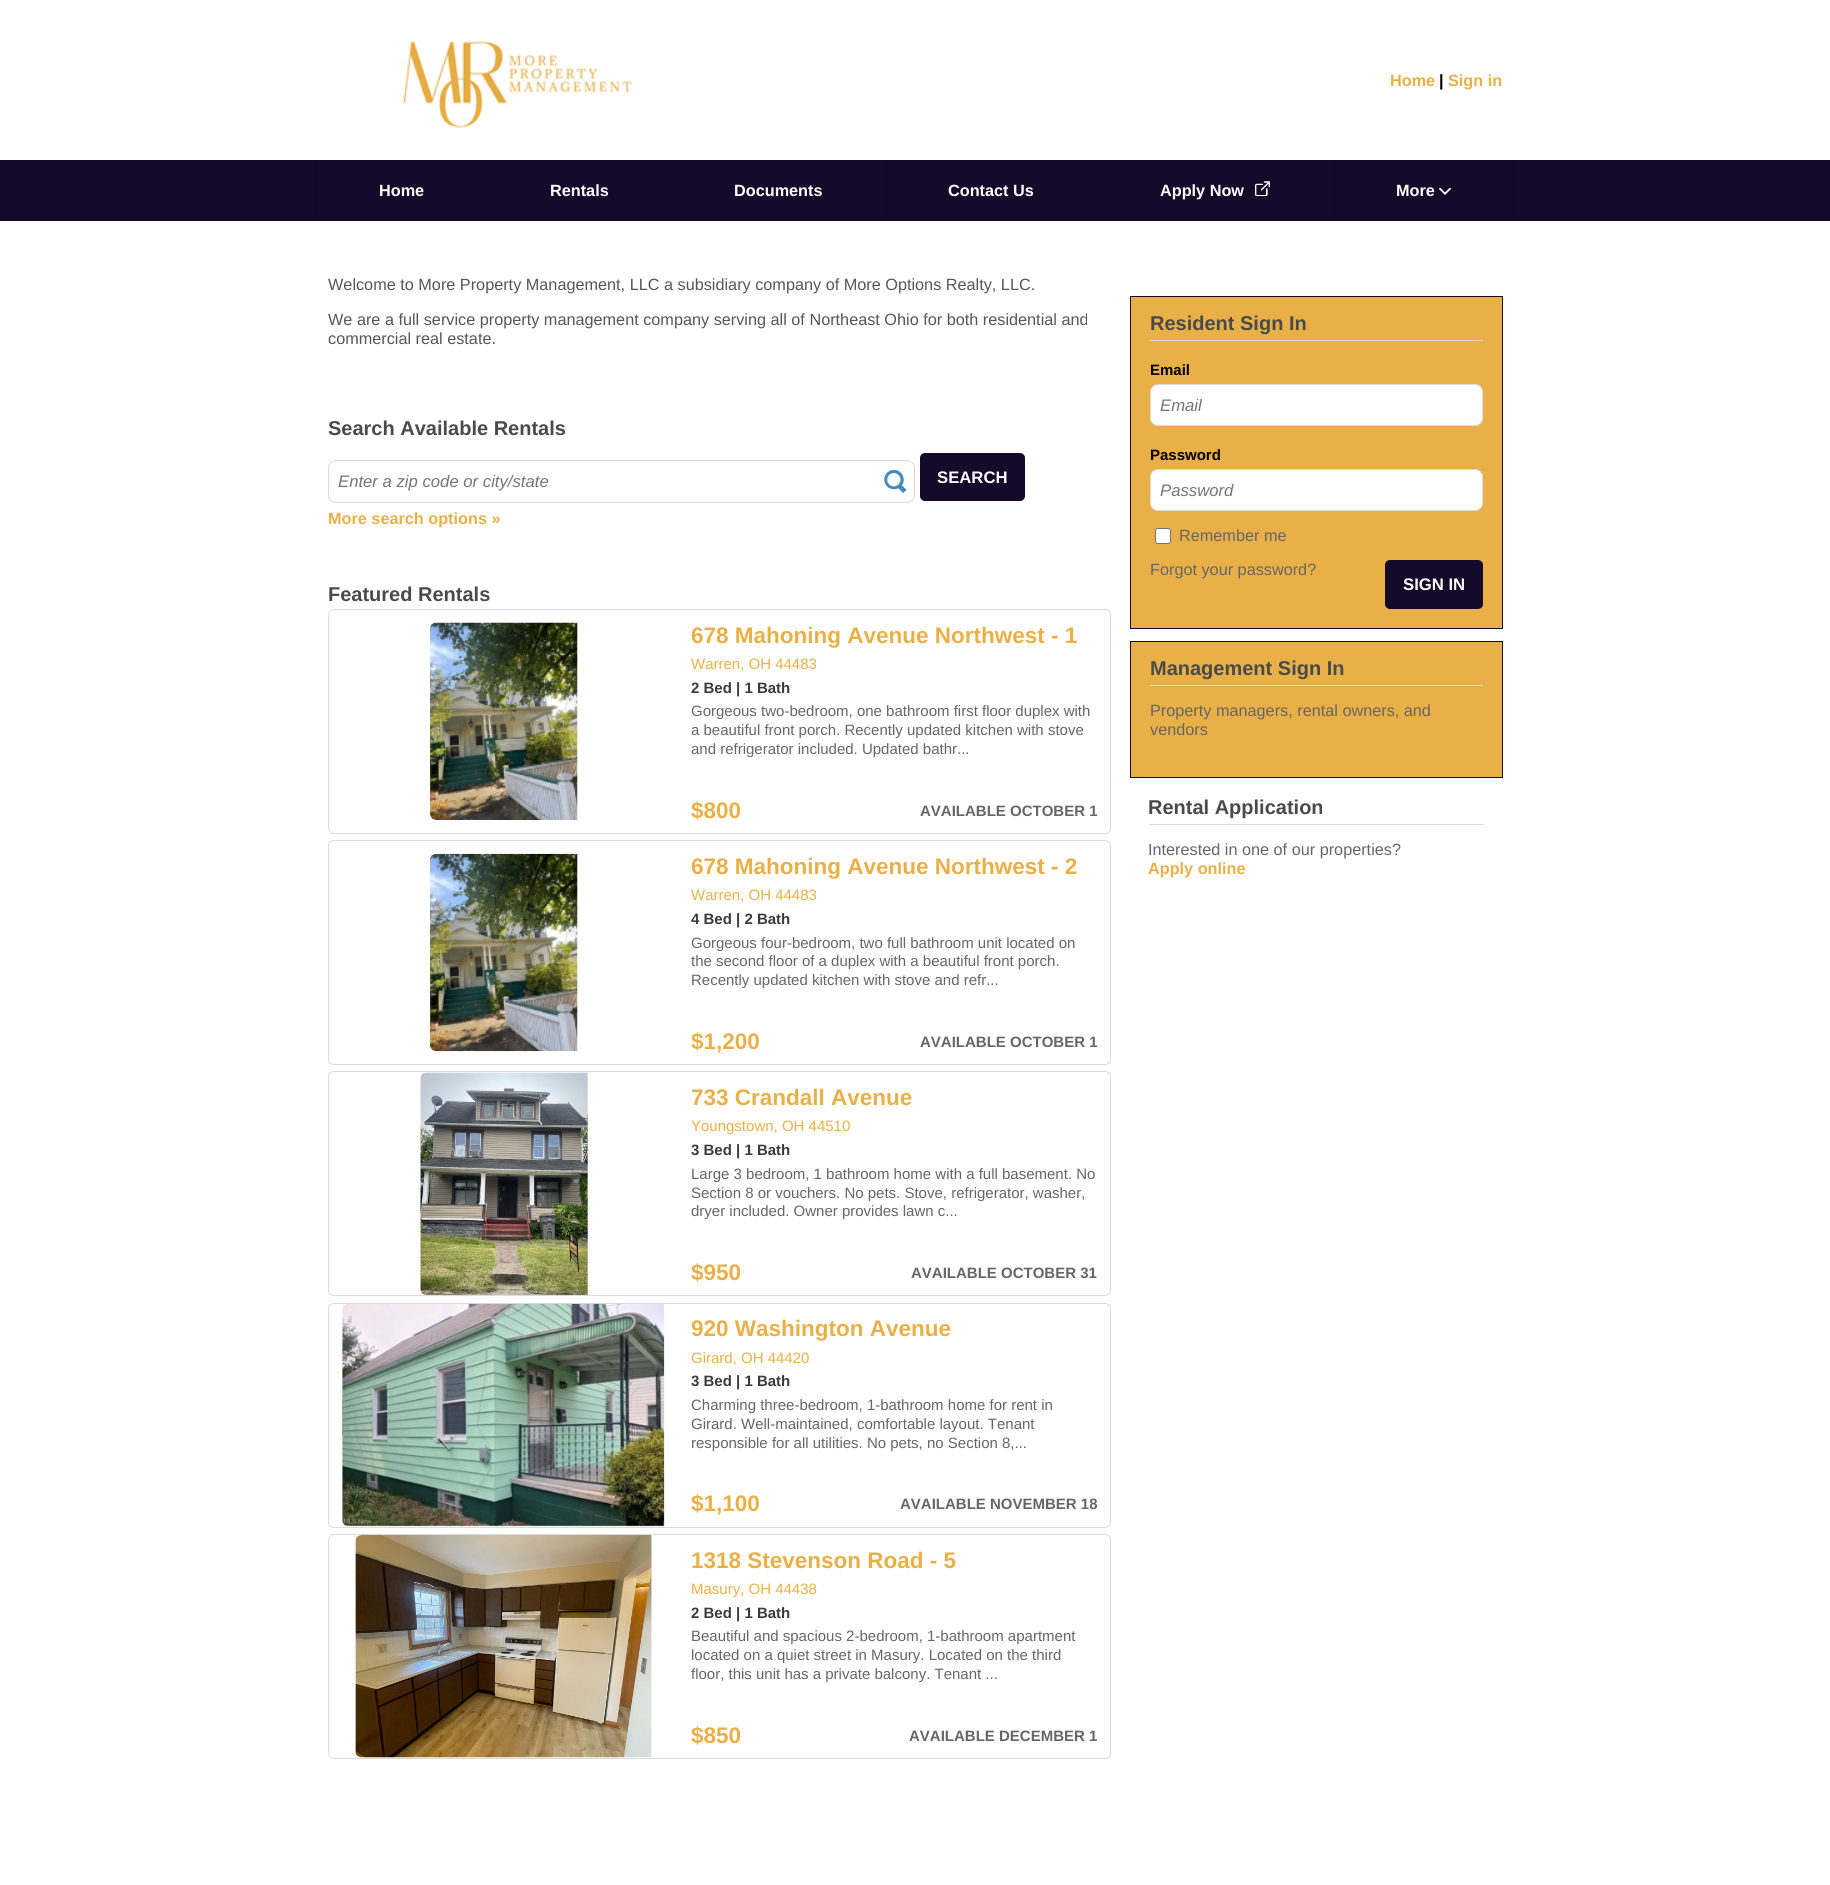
#include <cairo/cairo.h>
#include <math.h>
#include <stddef.h>


static void rounded_rect(cairo_t *cr, double x, double y, double w, double h, double r) {
  cairo_new_sub_path(cr);
  cairo_arc(cr, x + w - r, y + h - r, r, 0, M_PI / 2);
  cairo_arc(cr, x + r, y + h - r, r, M_PI / 2, M_PI);
  cairo_arc(cr, x + r, y + r, r, M_PI, 1.5 * M_PI);
  cairo_arc(cr, x + w - r, y + r, r, 1.5 * M_PI, 2 * M_PI);
  cairo_close_path(cr);
}

static void draw_image(cairo_t *cr, const char *path, double x, double y, double w, double h) {
  cairo_surface_t *image = cairo_image_surface_create_from_png(path);
  cairo_save(cr);
  cairo_set_source_surface(cr, image, x, y);
  cairo_rectangle(cr, x, y, w, h);
  cairo_fill(cr);
  cairo_restore(cr);
  cairo_surface_destroy(image);
}

static void draw(cairo_t *cr) {
  cairo_set_source_rgb(cr, 1, 1, 1);
  cairo_paint(cr);
  draw_image(cr, "images/1.png", 402, 41, 231, 87);
  cairo_set_source_rgb(cr, 20 / 255.0, 10 / 255.0, 41 / 255.0);
  cairo_rectangle(cr, 0, 160, 1830, 61);
  cairo_fill(cr);
  cairo_set_source_rgb(cr, 17 / 255.0, 9 / 255.0, 36 / 255.0);
  cairo_rectangle(cr, 315, 160, 1, 61);
  cairo_fill(cr);
  cairo_rectangle(cr, 486, 160, 1, 61);
  cairo_fill(cr);
  cairo_rectangle(cr, 670, 160, 1, 61);
  cairo_fill(cr);
  cairo_rectangle(cr, 885, 160, 1, 61);
  cairo_fill(cr);
  cairo_rectangle(cr, 1096, 160, 1, 61);
  cairo_fill(cr);
  draw_image(cr, "images/2.png", 1255, 181, 15, 15);
  cairo_rectangle(cr, 1514, 160, 1, 61);
  cairo_fill(cr);
  cairo_rectangle(cr, 1333, 160, 1, 61);
  cairo_fill(cr);
  draw_image(cr, "images/3.png", 1439, 188, 12, 7);
  draw_image(cr, "images/4.png", 884, 469, 23, 24);
  rounded_rect(cr, 328.5, 460.5, 586, 42, 7.5);
  cairo_set_source_rgb(cr, 219 / 255.0, 219 / 255.0, 219 / 255.0);
  cairo_set_line_width(cr, 1);
  cairo_stroke(cr);
  cairo_set_source_rgb(cr, 20 / 255.0, 10 / 255.0, 41 / 255.0);
  rounded_rect(cr, 920, 453, 105, 48, 5);
  cairo_fill(cr);
  rounded_rect(cr, 328.5, 609.5, 782, 224, 5.5);
  cairo_set_source_rgb(cr, 219 / 255.0, 219 / 255.0, 219 / 255.0);
  cairo_stroke(cr);
  draw_image(cr, "images/5.png", 430, 622, 148, 198);
  rounded_rect(cr, 328.5, 840.5, 782, 224, 5.5);
  cairo_stroke(cr);
  draw_image(cr, "images/6.png", 430, 853, 148, 199);
  rounded_rect(cr, 328.5, 1071.5, 782, 224, 5.5);
  cairo_stroke(cr);
  draw_image(cr, "images/7.png", 420, 1072, 168, 223);
  rounded_rect(cr, 328.5, 1303.5, 782, 224, 5.5);
  cairo_stroke(cr);
  draw_image(cr, "images/8.png", 342, 1303, 323, 224);
  rounded_rect(cr, 328.5, 1534.5, 782, 224, 5.5);
  cairo_stroke(cr);
  draw_image(cr, "images/9.png", 355, 1535, 297, 223);
  cairo_set_source_rgb(cr, 233 / 255.0, 176 / 255.0, 71 / 255.0);
  cairo_rectangle(cr, 1130.5, 296.5, 372, 332);
  cairo_fill_preserve(cr);
  cairo_set_source_rgb(cr, 20 / 255.0, 10 / 255.0, 41 / 255.0);
  cairo_stroke(cr);
  cairo_set_source_rgb(cr, 219 / 255.0, 219 / 255.0, 219 / 255.0);
  cairo_rectangle(cr, 1150, 340, 333, 1);
  cairo_fill(cr);
  cairo_set_source_rgb(cr, 1, 1, 1);
  rounded_rect(cr, 1150.5, 384.5, 332, 41, 7.5);
  cairo_fill_preserve(cr);
  cairo_set_source_rgb(cr, 219 / 255.0, 219 / 255.0, 219 / 255.0);
  cairo_stroke(cr);
  cairo_set_source_rgb(cr, 1, 1, 1);
  rounded_rect(cr, 1150.5, 469.5, 332, 41, 7.5);
  cairo_fill_preserve(cr);
  cairo_set_source_rgb(cr, 219 / 255.0, 219 / 255.0, 219 / 255.0);
  cairo_stroke(cr);
  cairo_set_source_rgb(cr, 1, 1, 1);
  rounded_rect(cr, 1155.5, 528.5, 15, 15, 2);
  cairo_fill_preserve(cr);
  cairo_set_source_rgb(cr, 118 / 255.0, 118 / 255.0, 118 / 255.0);
  cairo_stroke(cr);
  cairo_set_source_rgb(cr, 20 / 255.0, 10 / 255.0, 41 / 255.0);
  rounded_rect(cr, 1385, 560, 98, 49, 5);
  cairo_fill(cr);
  cairo_set_source_rgb(cr, 233 / 255.0, 176 / 255.0, 71 / 255.0);
  cairo_rectangle(cr, 1130.5, 641.5, 372, 136);
  cairo_fill_preserve(cr);
  cairo_set_source_rgb(cr, 20 / 255.0, 10 / 255.0, 41 / 255.0);
  cairo_stroke(cr);
  cairo_set_source_rgb(cr, 219 / 255.0, 219 / 255.0, 219 / 255.0);
  cairo_rectangle(cr, 1150, 685, 333, 1);
  cairo_fill(cr);
  cairo_rectangle(cr, 1149, 824, 335, 1);
  cairo_fill(cr);
  cairo_select_font_face(cr, "Liberation Sans", CAIRO_FONT_SLANT_NORMAL, CAIRO_FONT_WEIGHT_BOLD);
  cairo_set_font_size(cr, 16.25);
  cairo_set_source_rgb(cr, 233 / 255.0, 176 / 255.0, 71 / 255.0);
  cairo_move_to(cr, 1390, 86);
  cairo_show_text(cr, "Home");
  cairo_set_source_rgb(cr, 0, 0, 0);
  cairo_move_to(cr, 1439, 86);
  cairo_show_text(cr, "|");
  cairo_set_source_rgb(cr, 233 / 255.0, 176 / 255.0, 71 / 255.0);
  cairo_move_to(cr, 1448, 86);
  cairo_show_text(cr, "Sign in");
  cairo_set_source_rgb(cr, 1, 1, 1);
  cairo_move_to(cr, 379, 196);
  cairo_show_text(cr, "Home");
  cairo_move_to(cr, 550, 196);
  cairo_show_text(cr, "Rentals");
  cairo_move_to(cr, 734, 196);
  cairo_show_text(cr, "Documents");
  cairo_move_to(cr, 948, 196);
  cairo_show_text(cr, "Contact Us");
  cairo_move_to(cr, 1160, 196);
  cairo_show_text(cr, "Apply Now");
  cairo_move_to(cr, 1396, 196);
  cairo_show_text(cr, "More");
  cairo_select_font_face(cr, "Liberation Sans", CAIRO_FONT_SLANT_NORMAL, CAIRO_FONT_WEIGHT_NORMAL);
  cairo_set_source_rgb(cr, 86 / 255.0, 86 / 255.0, 86 / 255.0);
  cairo_move_to(cr, 328, 290);
  cairo_show_text(cr, "Welcome to More Property Management, LLC a subsidiary company of More Options Realty, LLC.");
  cairo_move_to(cr, 328, 325);
  cairo_show_text(cr, "We are a full service property management company serving all of Northeast Ohio for both residential and");
  cairo_move_to(cr, 328, 344);
  cairo_show_text(cr, "commercial real estate.");
  cairo_select_font_face(cr, "Liberation Sans", CAIRO_FONT_SLANT_NORMAL, CAIRO_FONT_WEIGHT_BOLD);
  cairo_set_font_size(cr, 20);
  cairo_set_source_rgb(cr, 74 / 255.0, 74 / 255.0, 74 / 255.0);
  cairo_move_to(cr, 328, 435);
  cairo_show_text(cr, "Search Available Rentals");
  cairo_select_font_face(cr, "Liberation Sans", CAIRO_FONT_SLANT_ITALIC, CAIRO_FONT_WEIGHT_NORMAL);
  cairo_set_font_size(cr, 16.7);
  cairo_set_source_rgb(cr, 117 / 255.0, 117 / 255.0, 117 / 255.0);
  cairo_move_to(cr, 338, 487);
  cairo_show_text(cr, "Enter a zip code or city/state");
  cairo_select_font_face(cr, "Liberation Sans", CAIRO_FONT_SLANT_NORMAL, CAIRO_FONT_WEIGHT_BOLD);
  cairo_set_source_rgb(cr, 1, 1, 1);
  cairo_move_to(cr, 937, 483);
  cairo_show_text(cr, "SEARCH");
  cairo_set_font_size(cr, 16.25);
  cairo_set_source_rgb(cr, 233 / 255.0, 176 / 255.0, 71 / 255.0);
  cairo_move_to(cr, 328, 524);
  cairo_show_text(cr, "More search options »");
  cairo_set_font_size(cr, 20);
  cairo_set_source_rgb(cr, 74 / 255.0, 74 / 255.0, 74 / 255.0);
  cairo_move_to(cr, 328, 601);
  cairo_show_text(cr, "Featured Rentals");
  cairo_set_font_size(cr, 22.5);
  cairo_set_source_rgb(cr, 233 / 255.0, 176 / 255.0, 71 / 255.0);
  cairo_move_to(cr, 691, 643);
  cairo_show_text(cr, "678 Mahoning Avenue Northwest - 1");
  cairo_select_font_face(cr, "Liberation Sans", CAIRO_FONT_SLANT_NORMAL, CAIRO_FONT_WEIGHT_NORMAL);
  cairo_set_font_size(cr, 15);
  cairo_move_to(cr, 691, 669);
  cairo_show_text(cr, "Warren, OH 44483");
  cairo_select_font_face(cr, "Liberation Sans", CAIRO_FONT_SLANT_NORMAL, CAIRO_FONT_WEIGHT_BOLD);
  cairo_set_source_rgb(cr, 59 / 255.0, 59 / 255.0, 59 / 255.0);
  cairo_move_to(cr, 691, 693);
  cairo_show_text(cr, "2 Bed | 1 Bath");
  cairo_select_font_face(cr, "Liberation Sans", CAIRO_FONT_SLANT_NORMAL, CAIRO_FONT_WEIGHT_NORMAL);
  cairo_set_source_rgb(cr, 102 / 255.0, 102 / 255.0, 102 / 255.0);
  cairo_move_to(cr, 691, 716);
  cairo_show_text(cr, "Gorgeous two-bedroom, one bathroom first floor duplex with");
  cairo_move_to(cr, 691, 735);
  cairo_show_text(cr, "a beautiful front porch. Recently updated kitchen with stove");
  cairo_move_to(cr, 691, 754);
  cairo_show_text(cr, "and refrigerator included. Updated bathr...");
  cairo_select_font_face(cr, "Liberation Sans", CAIRO_FONT_SLANT_NORMAL, CAIRO_FONT_WEIGHT_BOLD);
  cairo_set_font_size(cr, 22.5);
  cairo_set_source_rgb(cr, 233 / 255.0, 176 / 255.0, 71 / 255.0);
  cairo_move_to(cr, 691, 818);
  cairo_show_text(cr, "$800");
  cairo_set_font_size(cr, 15);
  cairo_set_source_rgb(cr, 102 / 255.0, 102 / 255.0, 102 / 255.0);
  cairo_move_to(cr, 920, 816);
  cairo_show_text(cr, "AVAILABLE OCTOBER 1");
  cairo_set_font_size(cr, 22.5);
  cairo_set_source_rgb(cr, 233 / 255.0, 176 / 255.0, 71 / 255.0);
  cairo_move_to(cr, 691, 874);
  cairo_show_text(cr, "678 Mahoning Avenue Northwest - 2");
  cairo_select_font_face(cr, "Liberation Sans", CAIRO_FONT_SLANT_NORMAL, CAIRO_FONT_WEIGHT_NORMAL);
  cairo_set_font_size(cr, 15);
  cairo_move_to(cr, 691, 900);
  cairo_show_text(cr, "Warren, OH 44483");
  cairo_select_font_face(cr, "Liberation Sans", CAIRO_FONT_SLANT_NORMAL, CAIRO_FONT_WEIGHT_BOLD);
  cairo_set_source_rgb(cr, 59 / 255.0, 59 / 255.0, 59 / 255.0);
  cairo_move_to(cr, 691, 924);
  cairo_show_text(cr, "4 Bed | 2 Bath");
  cairo_select_font_face(cr, "Liberation Sans", CAIRO_FONT_SLANT_NORMAL, CAIRO_FONT_WEIGHT_NORMAL);
  cairo_set_source_rgb(cr, 102 / 255.0, 102 / 255.0, 102 / 255.0);
  cairo_move_to(cr, 691, 948);
  cairo_show_text(cr, "Gorgeous four-bedroom, two full bathroom unit located on");
  cairo_move_to(cr, 691, 966);
  cairo_show_text(cr, "the second floor of a duplex with a beautiful front porch.");
  cairo_move_to(cr, 691, 985);
  cairo_show_text(cr, "Recently updated kitchen with stove and refr...");
  cairo_select_font_face(cr, "Liberation Sans", CAIRO_FONT_SLANT_NORMAL, CAIRO_FONT_WEIGHT_BOLD);
  cairo_set_font_size(cr, 22.5);
  cairo_set_source_rgb(cr, 233 / 255.0, 176 / 255.0, 71 / 255.0);
  cairo_move_to(cr, 691, 1049);
  cairo_show_text(cr, "$1,200");
  cairo_set_font_size(cr, 15);
  cairo_set_source_rgb(cr, 102 / 255.0, 102 / 255.0, 102 / 255.0);
  cairo_move_to(cr, 920, 1047);
  cairo_show_text(cr, "AVAILABLE OCTOBER 1");
  cairo_set_font_size(cr, 22.5);
  cairo_set_source_rgb(cr, 233 / 255.0, 176 / 255.0, 71 / 255.0);
  cairo_move_to(cr, 691, 1105);
  cairo_show_text(cr, "733 Crandall Avenue");
  cairo_select_font_face(cr, "Liberation Sans", CAIRO_FONT_SLANT_NORMAL, CAIRO_FONT_WEIGHT_NORMAL);
  cairo_set_font_size(cr, 15);
  cairo_move_to(cr, 691, 1131);
  cairo_show_text(cr, "Youngstown, OH 44510");
  cairo_select_font_face(cr, "Liberation Sans", CAIRO_FONT_SLANT_NORMAL, CAIRO_FONT_WEIGHT_BOLD);
  cairo_set_source_rgb(cr, 59 / 255.0, 59 / 255.0, 59 / 255.0);
  cairo_move_to(cr, 691, 1155);
  cairo_show_text(cr, "3 Bed | 1 Bath");
  cairo_select_font_face(cr, "Liberation Sans", CAIRO_FONT_SLANT_NORMAL, CAIRO_FONT_WEIGHT_NORMAL);
  cairo_set_source_rgb(cr, 102 / 255.0, 102 / 255.0, 102 / 255.0);
  cairo_move_to(cr, 691, 1179);
  cairo_show_text(cr, "Large 3 bedroom, 1 bathroom home with a full basement. No");
  cairo_move_to(cr, 691, 1198);
  cairo_show_text(cr, "Section 8 or vouchers. No pets. Stove, refrigerator, washer,");
  cairo_move_to(cr, 691, 1216);
  cairo_show_text(cr, "dryer included. Owner provides lawn c...");
  cairo_select_font_face(cr, "Liberation Sans", CAIRO_FONT_SLANT_NORMAL, CAIRO_FONT_WEIGHT_BOLD);
  cairo_set_font_size(cr, 22.5);
  cairo_set_source_rgb(cr, 233 / 255.0, 176 / 255.0, 71 / 255.0);
  cairo_move_to(cr, 691, 1280);
  cairo_show_text(cr, "$950");
  cairo_set_font_size(cr, 15);
  cairo_set_source_rgb(cr, 102 / 255.0, 102 / 255.0, 102 / 255.0);
  cairo_move_to(cr, 911, 1278);
  cairo_show_text(cr, "AVAILABLE OCTOBER 31");
  cairo_set_font_size(cr, 22.5);
  cairo_set_source_rgb(cr, 233 / 255.0, 176 / 255.0, 71 / 255.0);
  cairo_move_to(cr, 691, 1336);
  cairo_show_text(cr, "920 Washington Avenue");
  cairo_select_font_face(cr, "Liberation Sans", CAIRO_FONT_SLANT_NORMAL, CAIRO_FONT_WEIGHT_NORMAL);
  cairo_set_font_size(cr, 15);
  cairo_move_to(cr, 691, 1363);
  cairo_show_text(cr, "Girard, OH 44420");
  cairo_select_font_face(cr, "Liberation Sans", CAIRO_FONT_SLANT_NORMAL, CAIRO_FONT_WEIGHT_BOLD);
  cairo_set_source_rgb(cr, 59 / 255.0, 59 / 255.0, 59 / 255.0);
  cairo_move_to(cr, 691, 1386);
  cairo_show_text(cr, "3 Bed | 1 Bath");
  cairo_select_font_face(cr, "Liberation Sans", CAIRO_FONT_SLANT_NORMAL, CAIRO_FONT_WEIGHT_NORMAL);
  cairo_set_source_rgb(cr, 102 / 255.0, 102 / 255.0, 102 / 255.0);
  cairo_move_to(cr, 691, 1410);
  cairo_show_text(cr, "Charming three-bedroom, 1-bathroom home for rent in");
  cairo_move_to(cr, 691, 1429);
  cairo_show_text(cr, "Girard. Well-maintained, comfortable layout. Tenant");
  cairo_move_to(cr, 691, 1448);
  cairo_show_text(cr, "responsible for all utilities. No pets, no Section 8,...");
  cairo_select_font_face(cr, "Liberation Sans", CAIRO_FONT_SLANT_NORMAL, CAIRO_FONT_WEIGHT_BOLD);
  cairo_set_font_size(cr, 22.5);
  cairo_set_source_rgb(cr, 233 / 255.0, 176 / 255.0, 71 / 255.0);
  cairo_move_to(cr, 691, 1511);
  cairo_show_text(cr, "$1,100");
  cairo_set_font_size(cr, 15);
  cairo_set_source_rgb(cr, 102 / 255.0, 102 / 255.0, 102 / 255.0);
  cairo_move_to(cr, 900, 1509);
  cairo_show_text(cr, "AVAILABLE NOVEMBER 18");
  cairo_set_font_size(cr, 22.5);
  cairo_set_source_rgb(cr, 233 / 255.0, 176 / 255.0, 71 / 255.0);
  cairo_move_to(cr, 691, 1568);
  cairo_show_text(cr, "1318 Stevenson Road - 5");
  cairo_select_font_face(cr, "Liberation Sans", CAIRO_FONT_SLANT_NORMAL, CAIRO_FONT_WEIGHT_NORMAL);
  cairo_set_font_size(cr, 15);
  cairo_move_to(cr, 691, 1594);
  cairo_show_text(cr, "Masury, OH 44438");
  cairo_select_font_face(cr, "Liberation Sans", CAIRO_FONT_SLANT_NORMAL, CAIRO_FONT_WEIGHT_BOLD);
  cairo_set_source_rgb(cr, 59 / 255.0, 59 / 255.0, 59 / 255.0);
  cairo_move_to(cr, 691, 1618);
  cairo_show_text(cr, "2 Bed | 1 Bath");
  cairo_select_font_face(cr, "Liberation Sans", CAIRO_FONT_SLANT_NORMAL, CAIRO_FONT_WEIGHT_NORMAL);
  cairo_set_source_rgb(cr, 102 / 255.0, 102 / 255.0, 102 / 255.0);
  cairo_move_to(cr, 691, 1641);
  cairo_show_text(cr, "Beautiful and spacious 2-bedroom, 1-bathroom apartment");
  cairo_move_to(cr, 691, 1660);
  cairo_show_text(cr, "located on a quiet street in Masury. Located on the third");
  cairo_move_to(cr, 691, 1679);
  cairo_show_text(cr, "floor, this unit has a private balcony. Tenant ...");
  cairo_select_font_face(cr, "Liberation Sans", CAIRO_FONT_SLANT_NORMAL, CAIRO_FONT_WEIGHT_BOLD);
  cairo_set_font_size(cr, 22.5);
  cairo_set_source_rgb(cr, 233 / 255.0, 176 / 255.0, 71 / 255.0);
  cairo_move_to(cr, 691, 1743);
  cairo_show_text(cr, "$850");
  cairo_set_font_size(cr, 15);
  cairo_set_source_rgb(cr, 102 / 255.0, 102 / 255.0, 102 / 255.0);
  cairo_move_to(cr, 909, 1741);
  cairo_show_text(cr, "AVAILABLE DECEMBER 1");
  cairo_set_font_size(cr, 20);
  cairo_set_source_rgb(cr, 74 / 255.0, 74 / 255.0, 74 / 255.0);
  cairo_move_to(cr, 1150, 330);
  cairo_show_text(cr, "Resident Sign In");
  cairo_set_font_size(cr, 15);
  cairo_set_source_rgb(cr, 0, 0, 0);
  cairo_move_to(cr, 1150, 375);
  cairo_show_text(cr, "Email");
  cairo_select_font_face(cr, "Liberation Sans", CAIRO_FONT_SLANT_ITALIC, CAIRO_FONT_WEIGHT_NORMAL);
  cairo_set_font_size(cr, 16.7);
  cairo_set_source_rgb(cr, 117 / 255.0, 117 / 255.0, 117 / 255.0);
  cairo_move_to(cr, 1160, 411);
  cairo_show_text(cr, "Email");
  cairo_select_font_face(cr, "Liberation Sans", CAIRO_FONT_SLANT_NORMAL, CAIRO_FONT_WEIGHT_BOLD);
  cairo_set_font_size(cr, 15);
  cairo_set_source_rgb(cr, 0, 0, 0);
  cairo_move_to(cr, 1150, 460);
  cairo_show_text(cr, "Password");
  cairo_select_font_face(cr, "Liberation Sans", CAIRO_FONT_SLANT_ITALIC, CAIRO_FONT_WEIGHT_NORMAL);
  cairo_set_font_size(cr, 16.7);
  cairo_set_source_rgb(cr, 117 / 255.0, 117 / 255.0, 117 / 255.0);
  cairo_move_to(cr, 1160, 496);
  cairo_show_text(cr, "Password");
  cairo_select_font_face(cr, "Liberation Sans", CAIRO_FONT_SLANT_NORMAL, CAIRO_FONT_WEIGHT_NORMAL);
  cairo_set_font_size(cr, 16.25);
  cairo_set_source_rgb(cr, 102 / 255.0, 102 / 255.0, 102 / 255.0);
  cairo_move_to(cr, 1179, 541);
  cairo_show_text(cr, "Remember me");
  cairo_move_to(cr, 1150, 575);
  cairo_show_text(cr, "Forgot your password?");
  cairo_select_font_face(cr, "Liberation Sans", CAIRO_FONT_SLANT_NORMAL, CAIRO_FONT_WEIGHT_BOLD);
  cairo_set_font_size(cr, 16.7);
  cairo_set_source_rgb(cr, 1, 1, 1);
  cairo_move_to(cr, 1403, 590);
  cairo_show_text(cr, "SIGN IN");
  cairo_set_font_size(cr, 20);
  cairo_set_source_rgb(cr, 74 / 255.0, 74 / 255.0, 74 / 255.0);
  cairo_move_to(cr, 1150, 675);
  cairo_show_text(cr, "Management Sign In");
  cairo_select_font_face(cr, "Liberation Sans", CAIRO_FONT_SLANT_NORMAL, CAIRO_FONT_WEIGHT_NORMAL);
  cairo_set_font_size(cr, 16.25);
  cairo_set_source_rgb(cr, 102 / 255.0, 102 / 255.0, 102 / 255.0);
  cairo_move_to(cr, 1150, 716);
  cairo_show_text(cr, "Property managers, rental owners, and");
  cairo_move_to(cr, 1150, 735);
  cairo_show_text(cr, "vendors");
  cairo_select_font_face(cr, "Liberation Sans", CAIRO_FONT_SLANT_NORMAL, CAIRO_FONT_WEIGHT_BOLD);
  cairo_set_font_size(cr, 20);
  cairo_set_source_rgb(cr, 74 / 255.0, 74 / 255.0, 74 / 255.0);
  cairo_move_to(cr, 1148, 814);
  cairo_show_text(cr, "Rental Application");
  cairo_select_font_face(cr, "Liberation Sans", CAIRO_FONT_SLANT_NORMAL, CAIRO_FONT_WEIGHT_NORMAL);
  cairo_set_font_size(cr, 16.25);
  cairo_set_source_rgb(cr, 102 / 255.0, 102 / 255.0, 102 / 255.0);
  cairo_move_to(cr, 1148, 855);
  cairo_show_text(cr, "Interested in one of our properties?");
  cairo_select_font_face(cr, "Liberation Sans", CAIRO_FONT_SLANT_NORMAL, CAIRO_FONT_WEIGHT_BOLD);
  cairo_set_source_rgb(cr, 233 / 255.0, 176 / 255.0, 71 / 255.0);
  cairo_move_to(cr, 1148, 874);
  cairo_show_text(cr, "Apply online");
}

int main(void) {
  cairo_surface_t *surface = cairo_image_surface_create(CAIRO_FORMAT_RGB24, 1830, 1885);
  cairo_t *cr = cairo_create(surface);
  cairo_font_options_t *options = cairo_font_options_create();
  cairo_font_options_set_hint_metrics(options, CAIRO_HINT_METRICS_OFF);
  cairo_font_options_set_hint_style(options, CAIRO_HINT_STYLE_NONE);
  cairo_set_font_options(cr, options);
  cairo_set_miter_limit(cr, 4);
  draw(cr);
  cairo_surface_write_to_png(surface, "out.png");
  cairo_font_options_destroy(options);
  cairo_destroy(cr);
  cairo_surface_destroy(surface);
  return 0;
}
